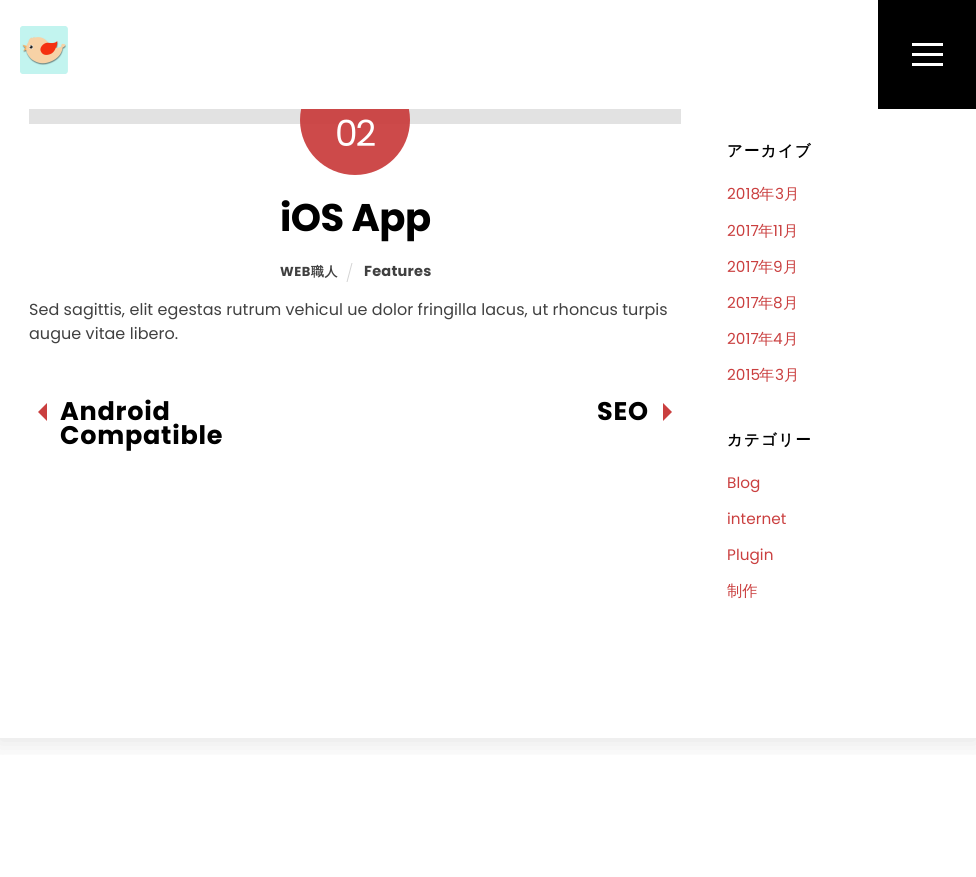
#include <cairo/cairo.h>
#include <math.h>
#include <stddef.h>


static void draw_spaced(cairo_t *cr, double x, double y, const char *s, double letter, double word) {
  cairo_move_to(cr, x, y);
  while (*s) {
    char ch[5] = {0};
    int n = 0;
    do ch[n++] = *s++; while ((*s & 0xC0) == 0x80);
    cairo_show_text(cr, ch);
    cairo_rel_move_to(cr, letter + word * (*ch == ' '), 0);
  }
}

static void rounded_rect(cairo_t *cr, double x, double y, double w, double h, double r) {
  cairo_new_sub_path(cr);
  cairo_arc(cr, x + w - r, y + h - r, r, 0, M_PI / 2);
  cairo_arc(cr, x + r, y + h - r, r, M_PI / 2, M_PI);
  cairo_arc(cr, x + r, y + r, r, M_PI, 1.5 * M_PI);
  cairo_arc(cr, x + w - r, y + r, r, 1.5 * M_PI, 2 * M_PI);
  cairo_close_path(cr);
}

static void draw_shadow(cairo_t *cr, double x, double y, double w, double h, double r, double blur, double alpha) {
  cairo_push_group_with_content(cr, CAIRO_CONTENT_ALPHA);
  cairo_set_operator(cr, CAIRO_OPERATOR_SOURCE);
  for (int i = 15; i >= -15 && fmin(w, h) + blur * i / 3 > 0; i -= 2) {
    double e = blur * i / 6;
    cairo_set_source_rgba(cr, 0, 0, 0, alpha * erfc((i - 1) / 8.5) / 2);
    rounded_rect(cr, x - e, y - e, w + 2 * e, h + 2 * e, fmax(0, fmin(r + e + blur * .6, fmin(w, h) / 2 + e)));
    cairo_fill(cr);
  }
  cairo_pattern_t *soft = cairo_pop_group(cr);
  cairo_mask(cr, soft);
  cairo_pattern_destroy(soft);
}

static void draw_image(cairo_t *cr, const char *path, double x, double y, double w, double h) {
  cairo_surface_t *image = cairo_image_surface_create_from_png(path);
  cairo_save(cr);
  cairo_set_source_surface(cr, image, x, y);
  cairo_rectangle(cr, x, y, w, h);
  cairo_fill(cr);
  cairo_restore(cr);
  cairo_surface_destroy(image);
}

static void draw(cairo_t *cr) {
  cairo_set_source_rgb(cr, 1, 1, 1);
  cairo_paint(cr);
  cairo_save(cr);
  cairo_rectangle(cr, 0, 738, 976, 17);
  cairo_clip(cr);
  cairo_set_source_rgb(cr, 0, 0, 0);
  draw_shadow(cr, -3, -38, 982, 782, 0, 12.5, 0.1);
  cairo_restore(cr);
  cairo_set_source_rgb(cr, 226 / 255.0, 226 / 255.0, 226 / 255.0);
  cairo_rectangle(cr, 29, 109, 652, 15);
  cairo_fill(cr);
  cairo_set_source_rgba(cr, 202 / 255.0, 63 / 255.0, 63 / 255.0, 0.94);
  cairo_arc(cr, 355, 120, 55, 0, 2 * M_PI);
  cairo_fill(cr);
  cairo_set_source_rgb(cr, 1, 1, 1);
  cairo_rectangle(cr, 301, 65, 108, 44);
  cairo_fill(cr);
  draw_image(cr, "images/1.png", 20, 26, 48, 48);
  cairo_set_source_rgb(cr, 0, 0, 0);
  cairo_rectangle(cr, 878, 0, 98, 109);
  cairo_fill(cr);
  cairo_set_source_rgb(cr, 1, 1, 1);
  cairo_rectangle(cr, 912, 63, 31, 3);
  cairo_fill(cr);
  cairo_rectangle(cr, 912, 43, 31, 3);
  cairo_fill(cr);
  cairo_rectangle(cr, 912, 53, 31, 3);
  cairo_fill(cr);
  cairo_set_source_rgb(cr, 211 / 255.0, 211 / 255.0, 211 / 255.0);
  cairo_new_path(cr);
  cairo_move_to(cr, 351.5, 263);
  cairo_line_to(cr, 352.5, 263);
  cairo_line_to(cr, 347.5, 282);
  cairo_line_to(cr, 346.5, 282);
  cairo_close_path(cr);
  cairo_fill(cr);
  cairo_set_source_rgb(cr, 202 / 255.0, 63 / 255.0, 63 / 255.0);
  cairo_new_path(cr);
  cairo_move_to(cr, 47, 403);
  cairo_line_to(cr, 47, 421);
  cairo_line_to(cr, 38, 412);
  cairo_close_path(cr);
  cairo_fill(cr);
  cairo_new_path(cr);
  cairo_move_to(cr, 663, 421);
  cairo_line_to(cr, 663, 403);
  cairo_line_to(cr, 672, 412);
  cairo_close_path(cr);
  cairo_fill(cr);
  cairo_select_font_face(cr, "Poppins", CAIRO_FONT_SLANT_NORMAL, CAIRO_FONT_WEIGHT_NORMAL);
  cairo_set_font_size(cr, 36);
  cairo_set_source_rgb(cr, 1, 1, 1);
  draw_spaced(cr, 335, 146, "02", -2, 0);
  cairo_select_font_face(cr, "Poppins", CAIRO_FONT_SLANT_NORMAL, CAIRO_FONT_WEIGHT_BOLD);
  cairo_set_font_size(cr, 38.5);
  cairo_set_source_rgb(cr, 0, 0, 0);
  draw_spaced(cr, 280, 231, "iOS App", -0.5, 0);
  cairo_set_font_size(cr, 13);
  cairo_set_source_rgb(cr, 64 / 255.0, 64 / 255.0, 64 / 255.0);
  draw_spaced(cr, 280, 276, "WEB", 0.5, 0);
  cairo_select_font_face(cr, "WenQuanYi Zen Hei", CAIRO_FONT_SLANT_NORMAL, CAIRO_FONT_WEIGHT_BOLD);
  draw_spaced(cr, 311, 276, "職人", 0.5, 0);
  cairo_select_font_face(cr, "Poppins", CAIRO_FONT_SLANT_NORMAL, CAIRO_FONT_WEIGHT_BOLD);
  cairo_set_font_size(cr, 14.5);
  draw_spaced(cr, 364, 276, "Features", 0.25, 0);
  cairo_select_font_face(cr, "Poppins", CAIRO_FONT_SLANT_NORMAL, CAIRO_FONT_WEIGHT_NORMAL);
  cairo_set_font_size(cr, 16);
  draw_spaced(cr, 29, 315, "Sed sagittis, elit egestas rutrum vehicul ue dolor fringilla lacus, ut rhoncus turpis", 0.05, 0);
  draw_spaced(cr, 29, 339, "augue vitae libero.", 0.05, 0);
  cairo_select_font_face(cr, "Poppins", CAIRO_FONT_SLANT_NORMAL, CAIRO_FONT_WEIGHT_BOLD);
  cairo_set_font_size(cr, 25.5);
  cairo_set_source_rgb(cr, 0, 0, 0);
  draw_spaced(cr, 60, 420, "Android", 0.75, 0);
  draw_spaced(cr, 60, 444, "Compatible", 0.75, 0);
  draw_spaced(cr, 597, 420, "SEO", 0.75, 0);
  cairo_select_font_face(cr, "WenQuanYi Zen Hei", CAIRO_FONT_SLANT_NORMAL, CAIRO_FONT_WEIGHT_BOLD);
  cairo_set_font_size(cr, 15.25);
  draw_spaced(cr, 727, 156, "アーカイブ", 1.5, 0);
  cairo_select_font_face(cr, "Poppins", CAIRO_FONT_SLANT_NORMAL, CAIRO_FONT_WEIGHT_NORMAL);
  cairo_set_source_rgb(cr, 202 / 255.0, 63 / 255.0, 63 / 255.0);
  draw_spaced(cr, 727, 199, "2018", 0.05, 0);
  cairo_select_font_face(cr, "WenQuanYi Zen Hei Medium", CAIRO_FONT_SLANT_NORMAL, CAIRO_FONT_WEIGHT_NORMAL);
  draw_spaced(cr, 759, 199, "年", 0.05, 0);
  cairo_select_font_face(cr, "Poppins", CAIRO_FONT_SLANT_NORMAL, CAIRO_FONT_WEIGHT_NORMAL);
  draw_spaced(cr, 775, 199, "3", 0.05, 0);
  cairo_select_font_face(cr, "WenQuanYi Zen Hei Medium", CAIRO_FONT_SLANT_NORMAL, CAIRO_FONT_WEIGHT_NORMAL);
  draw_spaced(cr, 784, 199, "月", 0.05, 0);
  cairo_select_font_face(cr, "Poppins", CAIRO_FONT_SLANT_NORMAL, CAIRO_FONT_WEIGHT_NORMAL);
  draw_spaced(cr, 727, 236, "2017", 0.05, 0);
  cairo_select_font_face(cr, "WenQuanYi Zen Hei Medium", CAIRO_FONT_SLANT_NORMAL, CAIRO_FONT_WEIGHT_NORMAL);
  draw_spaced(cr, 758, 236, "年", 0.05, 0);
  cairo_select_font_face(cr, "Poppins", CAIRO_FONT_SLANT_NORMAL, CAIRO_FONT_WEIGHT_NORMAL);
  draw_spaced(cr, 773, 236, "11", 0.05, 0);
  cairo_select_font_face(cr, "WenQuanYi Zen Hei Medium", CAIRO_FONT_SLANT_NORMAL, CAIRO_FONT_WEIGHT_NORMAL);
  draw_spaced(cr, 783, 236, "月", 0.05, 0);
  cairo_select_font_face(cr, "Poppins", CAIRO_FONT_SLANT_NORMAL, CAIRO_FONT_WEIGHT_NORMAL);
  draw_spaced(cr, 727, 272, "2017", 0.05, 0);
  cairo_select_font_face(cr, "WenQuanYi Zen Hei Medium", CAIRO_FONT_SLANT_NORMAL, CAIRO_FONT_WEIGHT_NORMAL);
  draw_spaced(cr, 758, 272, "年", 0.05, 0);
  cairo_select_font_face(cr, "Poppins", CAIRO_FONT_SLANT_NORMAL, CAIRO_FONT_WEIGHT_NORMAL);
  draw_spaced(cr, 773, 272, "9", 0.05, 0);
  cairo_select_font_face(cr, "WenQuanYi Zen Hei Medium", CAIRO_FONT_SLANT_NORMAL, CAIRO_FONT_WEIGHT_NORMAL);
  draw_spaced(cr, 783, 272, "月", 0.05, 0);
  cairo_select_font_face(cr, "Poppins", CAIRO_FONT_SLANT_NORMAL, CAIRO_FONT_WEIGHT_NORMAL);
  draw_spaced(cr, 727, 308, "2017", 0.05, 0);
  cairo_select_font_face(cr, "WenQuanYi Zen Hei Medium", CAIRO_FONT_SLANT_NORMAL, CAIRO_FONT_WEIGHT_NORMAL);
  draw_spaced(cr, 758, 308, "年", 0.05, 0);
  cairo_select_font_face(cr, "Poppins", CAIRO_FONT_SLANT_NORMAL, CAIRO_FONT_WEIGHT_NORMAL);
  draw_spaced(cr, 773, 308, "8", 0.05, 0);
  cairo_select_font_face(cr, "WenQuanYi Zen Hei Medium", CAIRO_FONT_SLANT_NORMAL, CAIRO_FONT_WEIGHT_NORMAL);
  draw_spaced(cr, 783, 308, "月", 0.05, 0);
  cairo_select_font_face(cr, "Poppins", CAIRO_FONT_SLANT_NORMAL, CAIRO_FONT_WEIGHT_NORMAL);
  draw_spaced(cr, 727, 344, "2017", 0.05, 0);
  cairo_select_font_face(cr, "WenQuanYi Zen Hei Medium", CAIRO_FONT_SLANT_NORMAL, CAIRO_FONT_WEIGHT_NORMAL);
  draw_spaced(cr, 758, 344, "年", 0.05, 0);
  cairo_select_font_face(cr, "Poppins", CAIRO_FONT_SLANT_NORMAL, CAIRO_FONT_WEIGHT_NORMAL);
  draw_spaced(cr, 773, 344, "4", 0.05, 0);
  cairo_select_font_face(cr, "WenQuanYi Zen Hei Medium", CAIRO_FONT_SLANT_NORMAL, CAIRO_FONT_WEIGHT_NORMAL);
  draw_spaced(cr, 783, 344, "月", 0.05, 0);
  cairo_select_font_face(cr, "Poppins", CAIRO_FONT_SLANT_NORMAL, CAIRO_FONT_WEIGHT_NORMAL);
  draw_spaced(cr, 727, 380, "2015", 0.05, 0);
  cairo_select_font_face(cr, "WenQuanYi Zen Hei Medium", CAIRO_FONT_SLANT_NORMAL, CAIRO_FONT_WEIGHT_NORMAL);
  draw_spaced(cr, 759, 380, "年", 0.05, 0);
  cairo_select_font_face(cr, "Poppins", CAIRO_FONT_SLANT_NORMAL, CAIRO_FONT_WEIGHT_NORMAL);
  draw_spaced(cr, 775, 380, "3", 0.05, 0);
  cairo_select_font_face(cr, "WenQuanYi Zen Hei Medium", CAIRO_FONT_SLANT_NORMAL, CAIRO_FONT_WEIGHT_NORMAL);
  draw_spaced(cr, 784, 380, "月", 0.05, 0);
  cairo_select_font_face(cr, "WenQuanYi Zen Hei", CAIRO_FONT_SLANT_NORMAL, CAIRO_FONT_WEIGHT_BOLD);
  cairo_set_source_rgb(cr, 0, 0, 0);
  draw_spaced(cr, 727, 445, "カテゴリー", 1.5, 0);
  cairo_select_font_face(cr, "Poppins", CAIRO_FONT_SLANT_NORMAL, CAIRO_FONT_WEIGHT_NORMAL);
  cairo_set_source_rgb(cr, 202 / 255.0, 63 / 255.0, 63 / 255.0);
  draw_spaced(cr, 727, 488, "Blog", 0.05, 0);
  draw_spaced(cr, 727, 524, "internet", 0.05, 0);
  draw_spaced(cr, 727, 560, "Plugin", 0.05, 0);
  cairo_select_font_face(cr, "WenQuanYi Zen Hei Medium", CAIRO_FONT_SLANT_NORMAL, CAIRO_FONT_WEIGHT_NORMAL);
  draw_spaced(cr, 727, 596, "制作", 0.05, 0);
}

int main(void) {
  cairo_surface_t *surface = cairo_image_surface_create(CAIRO_FORMAT_RGB24, 976, 877);
  cairo_t *cr = cairo_create(surface);
  cairo_font_options_t *options = cairo_font_options_create();
  cairo_font_options_set_hint_metrics(options, CAIRO_HINT_METRICS_OFF);
  cairo_font_options_set_hint_style(options, CAIRO_HINT_STYLE_NONE);
  cairo_set_font_options(cr, options);
  cairo_set_miter_limit(cr, 4);
  draw(cr);
  cairo_surface_write_to_png(surface, "out.png");
  cairo_font_options_destroy(options);
  cairo_destroy(cr);
  cairo_surface_destroy(surface);
  return 0;
}
